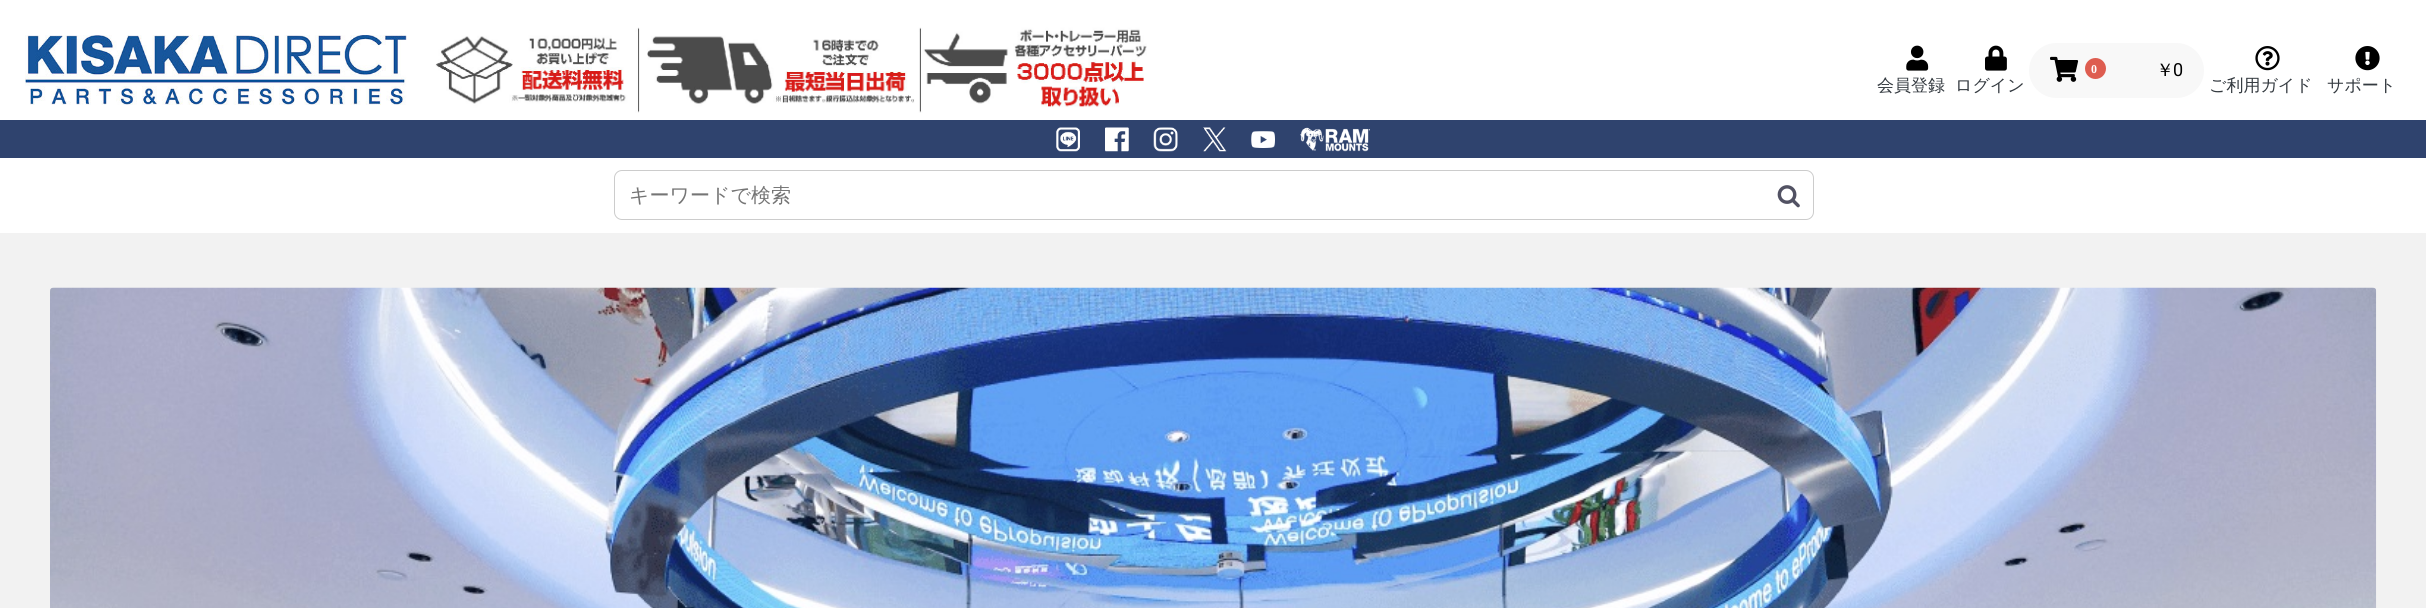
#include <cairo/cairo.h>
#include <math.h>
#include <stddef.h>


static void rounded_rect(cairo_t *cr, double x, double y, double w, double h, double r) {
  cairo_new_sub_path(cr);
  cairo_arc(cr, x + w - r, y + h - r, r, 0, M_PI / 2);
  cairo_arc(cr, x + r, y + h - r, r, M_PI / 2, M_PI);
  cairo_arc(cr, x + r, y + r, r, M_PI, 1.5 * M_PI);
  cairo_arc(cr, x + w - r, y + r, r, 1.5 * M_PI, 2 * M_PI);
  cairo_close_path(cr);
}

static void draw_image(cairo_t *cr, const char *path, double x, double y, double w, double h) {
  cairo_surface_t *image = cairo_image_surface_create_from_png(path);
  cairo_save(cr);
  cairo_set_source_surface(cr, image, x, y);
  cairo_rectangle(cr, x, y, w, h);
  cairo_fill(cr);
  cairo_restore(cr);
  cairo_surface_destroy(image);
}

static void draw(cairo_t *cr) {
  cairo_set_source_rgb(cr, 1, 1, 1);
  cairo_paint(cr);
  draw_image(cr, "images/1.png", 25, 35, 382, 70);
  draw_image(cr, "images/2.png", 435, 27, 712, 86);
  cairo_set_source_rgb(cr, 248 / 255.0, 248 / 255.0, 248 / 255.0);
  rounded_rect(cr, 2029, 43, 175, 55, 27.5);
  cairo_fill(cr);
  draw_image(cr, "images/3.png", 2050, 56, 29, 26);
  cairo_set_source_rgb(cr, 222 / 255.0, 93 / 255.0, 80 / 255.0);
  cairo_arc(cr, 2095.5, 68.5, 10.5, 0, 2 * M_PI);
  cairo_fill(cr);
  draw_image(cr, "images/4.png", 1906, 45, 23, 26);
  draw_image(cr, "images/5.png", 1985, 45, 22, 26);
  draw_image(cr, "images/6.png", 2255, 46, 25, 25);
  draw_image(cr, "images/7.png", 2355, 46, 25, 25);
  cairo_set_source_rgb(cr, 47 / 255.0, 67 / 255.0, 110 / 255.0);
  cairo_rectangle(cr, 0, 120, 2426, 38);
  cairo_fill(cr);
  draw_image(cr, "images/8.png", 1056, 127, 24, 25);
  draw_image(cr, "images/9.png", 1105, 127, 24, 25);
  draw_image(cr, "images/10.png", 1153, 127, 25, 25);
  draw_image(cr, "images/11.png", 1203, 127, 24, 25);
  draw_image(cr, "images/12.png", 1251, 131, 24, 17);
  draw_image(cr, "images/13.png", 1300, 127, 70, 25);
  rounded_rect(cr, 614.5, 170.5, 1199, 49, 7.5);
  cairo_set_source_rgb(cr, 204 / 255.0, 204 / 255.0, 204 / 255.0);
  cairo_set_line_width(cr, 1);
  cairo_stroke(cr);
  draw_image(cr, "images/14.png", 1777, 185, 23, 23);
  cairo_set_source_rgb(cr, 242 / 255.0, 242 / 255.0, 242 / 255.0);
  cairo_rectangle(cr, 0, 233, 2426, 375);
  cairo_fill(cr);
  draw_image(cr, "images/15.png", 50, 287, 2327, 321);
  cairo_select_font_face(cr, "Liberation Serif", CAIRO_FONT_SLANT_NORMAL, CAIRO_FONT_WEIGHT_BOLD);
  cairo_set_font_size(cr, 12);
  cairo_set_source_rgb(cr, 1, 1, 1);
  cairo_move_to(cr, 2091, 73);
  cairo_show_text(cr, "0");
  cairo_select_font_face(cr, "WenQuanYi Zen Hei Medium", CAIRO_FONT_SLANT_NORMAL, CAIRO_FONT_WEIGHT_NORMAL);
  cairo_set_font_size(cr, 18);
  cairo_set_source_rgb(cr, 0, 0, 0);
  cairo_move_to(cr, 2156, 76);
  cairo_show_text(cr, "￥");
  cairo_select_font_face(cr, "Roboto", CAIRO_FONT_SLANT_NORMAL, CAIRO_FONT_WEIGHT_NORMAL);
  cairo_move_to(cr, 2173, 76);
  cairo_show_text(cr, "0");
  cairo_select_font_face(cr, "WenQuanYi Zen Hei Medium", CAIRO_FONT_SLANT_NORMAL, CAIRO_FONT_WEIGHT_NORMAL);
  cairo_set_font_size(cr, 17);
  cairo_set_source_rgb(cr, 52 / 255.0, 58 / 255.0, 64 / 255.0);
  cairo_move_to(cr, 1877, 91);
  cairo_show_text(cr, "会員登録");
  cairo_move_to(cr, 1955, 91);
  cairo_show_text(cr, "ログイン");
  cairo_move_to(cr, 2209, 91);
  cairo_show_text(cr, "ご利用ガイド");
  cairo_move_to(cr, 2327, 91);
  cairo_show_text(cr, "サポート");
  cairo_set_font_size(cr, 20);
  cairo_set_source_rgb(cr, 117 / 255.0, 117 / 255.0, 117 / 255.0);
  cairo_move_to(cr, 629, 202);
  cairo_show_text(cr, "キーワードで検索");
}

int main(void) {
  cairo_surface_t *surface = cairo_image_surface_create(CAIRO_FORMAT_RGB24, 2426, 608);
  cairo_t *cr = cairo_create(surface);
  cairo_font_options_t *options = cairo_font_options_create();
  cairo_font_options_set_hint_metrics(options, CAIRO_HINT_METRICS_OFF);
  cairo_font_options_set_hint_style(options, CAIRO_HINT_STYLE_NONE);
  cairo_set_font_options(cr, options);
  cairo_set_miter_limit(cr, 4);
  draw(cr);
  cairo_surface_write_to_png(surface, "out.png");
  cairo_font_options_destroy(options);
  cairo_destroy(cr);
  cairo_surface_destroy(surface);
  return 0;
}
